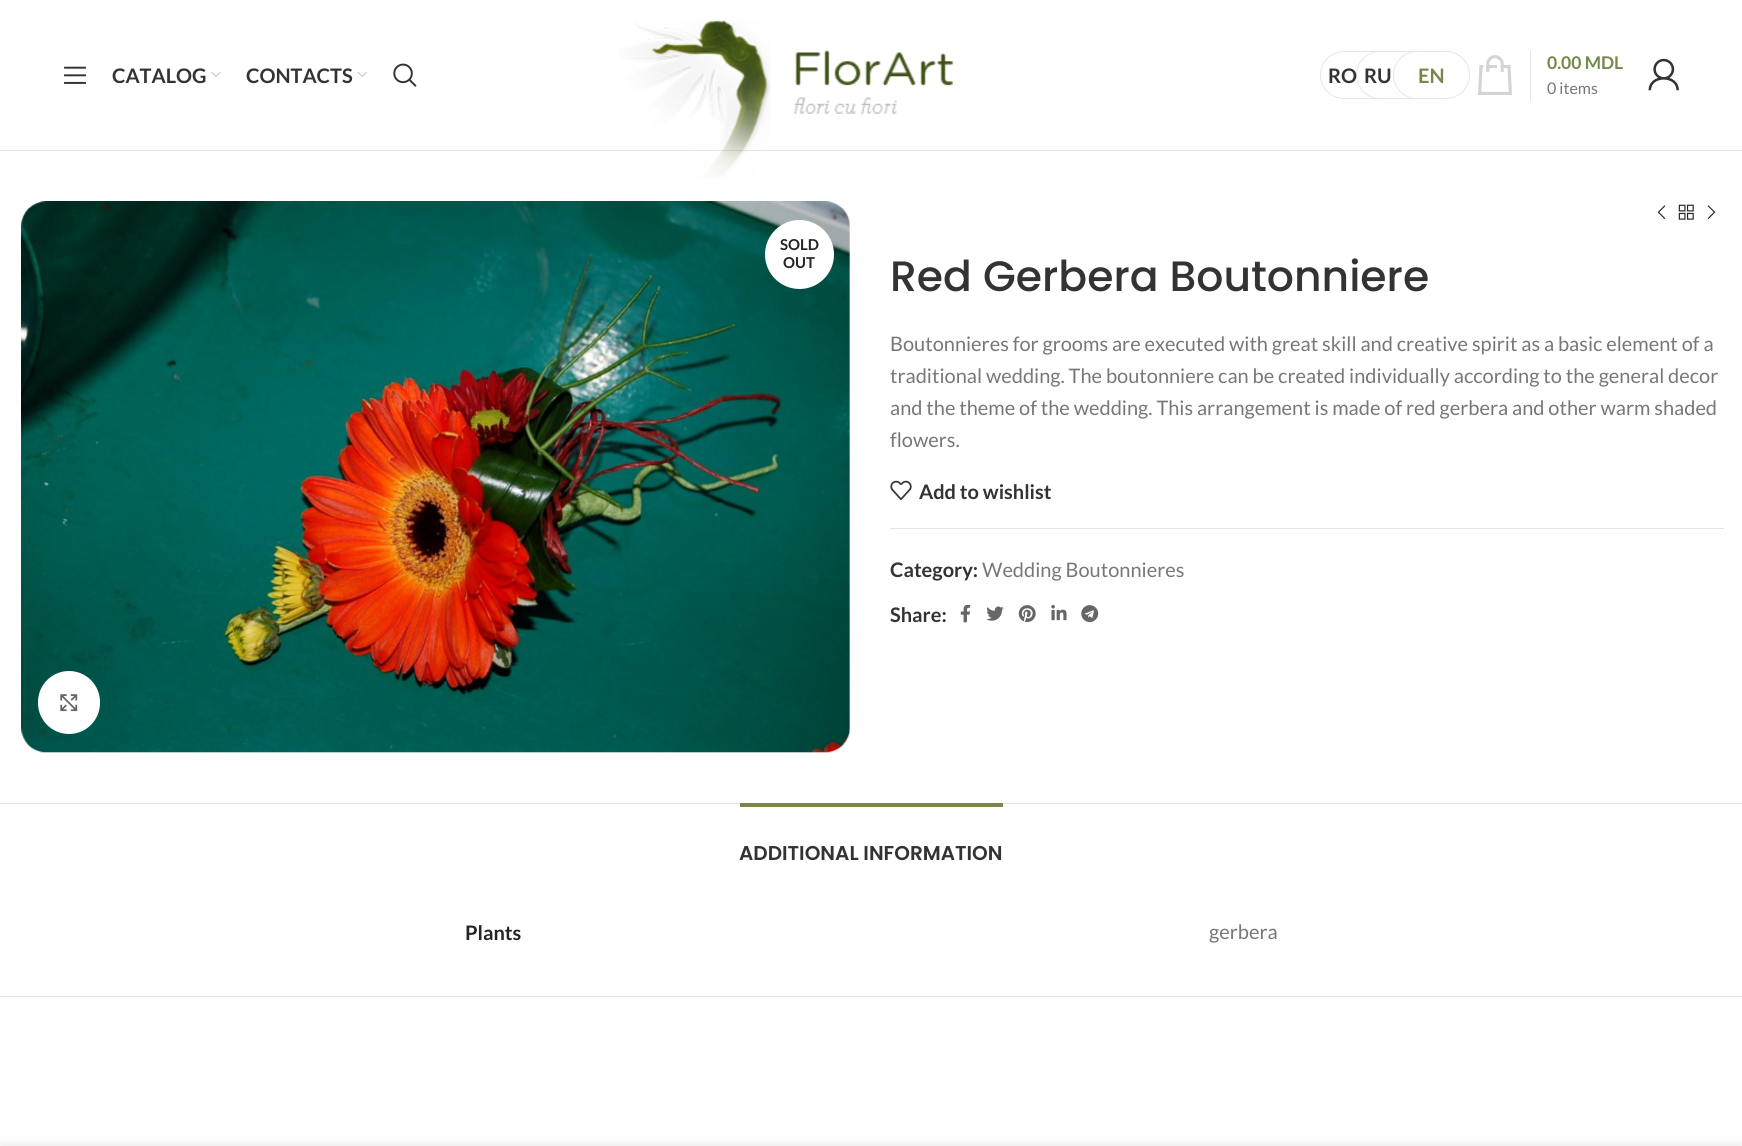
#include <cairo/cairo.h>
#include <math.h>
#include <stddef.h>


static void rounded_rect(cairo_t *cr, double x, double y, double w, double h, double r) {
  cairo_new_sub_path(cr);
  cairo_arc(cr, x + w - r, y + h - r, r, 0, M_PI / 2);
  cairo_arc(cr, x + r, y + h - r, r, M_PI / 2, M_PI);
  cairo_arc(cr, x + r, y + r, r, M_PI, 1.5 * M_PI);
  cairo_arc(cr, x + w - r, y + r, r, 1.5 * M_PI, 2 * M_PI);
  cairo_close_path(cr);
}

static void draw_shadow(cairo_t *cr, double x, double y, double w, double h, double r, double blur, double alpha) {
  cairo_push_group_with_content(cr, CAIRO_CONTENT_ALPHA);
  cairo_set_operator(cr, CAIRO_OPERATOR_SOURCE);
  for (int i = 15; i >= -15 && fmin(w, h) + blur * i / 3 > 0; i -= 2) {
    double e = blur * i / 6;
    cairo_set_source_rgba(cr, 0, 0, 0, alpha * erfc((i - 1) / 8.5) / 2);
    rounded_rect(cr, x - e, y - e, w + 2 * e, h + 2 * e, fmax(0, fmin(r + e + blur * .6, fmin(w, h) / 2 + e)));
    cairo_fill(cr);
  }
  cairo_pattern_t *soft = cairo_pop_group(cr);
  cairo_mask(cr, soft);
  cairo_pattern_destroy(soft);
}

static void draw_image(cairo_t *cr, const char *path, double x, double y, double w, double h) {
  cairo_surface_t *image = cairo_image_surface_create_from_png(path);
  cairo_save(cr);
  cairo_set_source_surface(cr, image, x, y);
  cairo_rectangle(cr, x, y, w, h);
  cairo_fill(cr);
  cairo_restore(cr);
  cairo_surface_destroy(image);
}

static void draw(cairo_t *cr) {
  cairo_set_source_rgb(cr, 1, 1, 1);
  cairo_paint(cr);
  cairo_set_source_rgb(cr, 230 / 255.0, 230 / 255.0, 230 / 255.0);
  cairo_rectangle(cr, 0, 150, 1742, 1);
  cairo_fill(cr);
  draw_image(cr, "images/1.png", 64, 66, 22, 18);
  draw_image(cr, "images/2.png", 211, 72, 10, 5);
  draw_image(cr, "images/3.png", 357, 72, 10, 5);
  draw_image(cr, "images/4.png", 393, 63, 24, 24);
  draw_image(cr, "images/5.png", 619, 20, 152, 159);
  draw_image(cr, "images/6.png", 793, 50, 161, 64);
  rounded_rect(cr, 1320.5, 51.5, 77, 47, 23.5);
  cairo_set_line_width(cr, 1);
  cairo_stroke(cr);
  cairo_set_source_rgb(cr, 1, 1, 1);
  rounded_rect(cr, 1356, 51, 78, 48, 24);
  cairo_fill(cr);
  rounded_rect(cr, 1356.5, 51.5, 77, 47, 23.5);
  cairo_set_source_rgba(cr, 0, 0, 0, 0.1);
  cairo_stroke(cr);
  cairo_set_source_rgb(cr, 1, 1, 1);
  rounded_rect(cr, 1393, 51, 77, 48, 24);
  cairo_fill(cr);
  rounded_rect(cr, 1393.5, 51.5, 76, 47, 23.5);
  cairo_set_source_rgba(cr, 0, 0, 0, 0.1);
  cairo_stroke(cr);
  draw_image(cr, "images/7.png", 1478, 55, 34, 40);
  cairo_set_source_rgb(cr, 230 / 255.0, 230 / 255.0, 230 / 255.0);
  cairo_rectangle(cr, 1530, 50, 1, 51);
  cairo_fill(cr);
  draw_image(cr, "images/8.png", 1648, 58, 31, 33);
  draw_image(cr, "images/9.png", 21, 201, 829, 552);
  cairo_set_source_rgb(cr, 1, 1, 1);
  cairo_arc(cr, 799.5, 254.5, 34.5, 0, 2 * M_PI);
  cairo_fill(cr);
  rounded_rect(cr, 38, 671, 62, 63, 31);
  cairo_fill(cr);
  draw_image(cr, "images/10.png", 60, 694, 18, 18);
  draw_image(cr, "images/11.png", 1657, 205, 9, 15);
  draw_image(cr, "images/12.png", 1678, 204, 16, 16);
  draw_image(cr, "images/13.png", 1707, 205, 9, 15);
  draw_image(cr, "images/14.png", 890, 480, 22, 20);
  cairo_set_source_rgb(cr, 228 / 255.0, 228 / 255.0, 228 / 255.0);
  cairo_rectangle(cr, 890, 528, 834, 1);
  cairo_fill(cr);
  draw_image(cr, "images/15.png", 960, 604, 11, 19);
  draw_image(cr, "images/16.png", 986, 606, 18, 15);
  draw_image(cr, "images/17.png", 1018, 605, 18, 18);
  draw_image(cr, "images/18.png", 1051, 604, 16, 17);
  draw_image(cr, "images/19.png", 1081, 605, 18, 18);
  cairo_rectangle(cr, 0, 803, 1742, 1);
  cairo_fill(cr);
  cairo_rectangle(cr, 0, 996, 1742, 1);
  cairo_fill(cr);
  cairo_set_source_rgb(cr, 118 / 255.0, 137 / 255.0, 75 / 255.0);
  cairo_rectangle(cr, 740, 803, 263, 4);
  cairo_fill(cr);
  cairo_set_source_rgb(cr, 0, 0, 0);
  draw_shadow(cr, 0, 1146, 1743, 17, 0, 5.5, 0.12);
  cairo_select_font_face(cr, "Lato", CAIRO_FONT_SLANT_NORMAL, CAIRO_FONT_WEIGHT_BOLD);
  cairo_set_font_size(cr, 20);
  cairo_set_source_rgb(cr, 51 / 255.0, 51 / 255.0, 51 / 255.0);
  cairo_move_to(cr, 112, 83);
  cairo_show_text(cr, "CATALOG");
  cairo_move_to(cr, 246, 83);
  cairo_show_text(cr, "CONTACTS");
  cairo_move_to(cr, 1328, 83);
  cairo_show_text(cr, "RO");
  cairo_move_to(cr, 1364, 83);
  cairo_show_text(cr, "RU");
  cairo_set_source_rgb(cr, 118 / 255.0, 137 / 255.0, 75 / 255.0);
  cairo_move_to(cr, 1418, 83);
  cairo_show_text(cr, "EN");
  cairo_set_font_size(cr, 17.5);
  cairo_move_to(cr, 1547, 69);
  cairo_show_text(cr, "0.00 MDL");
  cairo_select_font_face(cr, "Lato", CAIRO_FONT_SLANT_NORMAL, CAIRO_FONT_WEIGHT_NORMAL);
  cairo_set_font_size(cr, 16);
  cairo_set_source_rgb(cr, 119 / 255.0, 119 / 255.0, 119 / 255.0);
  cairo_move_to(cr, 1547, 94);
  cairo_show_text(cr, "0 items");
  cairo_select_font_face(cr, "Lato", CAIRO_FONT_SLANT_NORMAL, CAIRO_FONT_WEIGHT_BOLD);
  cairo_set_font_size(cr, 15);
  cairo_set_source_rgb(cr, 36 / 255.0, 36 / 255.0, 36 / 255.0);
  cairo_move_to(cr, 780, 250);
  cairo_show_text(cr, "SOLD");
  cairo_move_to(cr, 783, 268);
  cairo_show_text(cr, "OUT");
  cairo_select_font_face(cr, "Poppins Medium", CAIRO_FONT_SLANT_NORMAL, CAIRO_FONT_WEIGHT_NORMAL);
  cairo_set_font_size(cr, 42.5);
  cairo_set_source_rgb(cr, 51 / 255.0, 51 / 255.0, 51 / 255.0);
  cairo_move_to(cr, 890, 291);
  cairo_show_text(cr, "Red Gerbera Boutonniere");
  cairo_select_font_face(cr, "Lato", CAIRO_FONT_SLANT_NORMAL, CAIRO_FONT_WEIGHT_NORMAL);
  cairo_set_font_size(cr, 20);
  cairo_set_source_rgb(cr, 119 / 255.0, 119 / 255.0, 119 / 255.0);
  cairo_move_to(cr, 890, 351);
  cairo_show_text(cr, "Boutonnieres for grooms are executed with great skill and creative spirit as a basic element of a");
  cairo_move_to(cr, 890, 383);
  cairo_show_text(cr, "traditional wedding. The boutonniere can be created individually according to the general decor");
  cairo_move_to(cr, 890, 415);
  cairo_show_text(cr, "and the theme of the wedding. This arrangement is made of red gerbera and other warm shaded");
  cairo_move_to(cr, 890, 447);
  cairo_show_text(cr, "flowers.");
  cairo_select_font_face(cr, "Lato", CAIRO_FONT_SLANT_NORMAL, CAIRO_FONT_WEIGHT_BOLD);
  cairo_set_source_rgb(cr, 51 / 255.0, 51 / 255.0, 51 / 255.0);
  cairo_move_to(cr, 919, 499);
  cairo_show_text(cr, "Add to wishlist");
  cairo_move_to(cr, 890, 577);
  cairo_show_text(cr, "Category:");
  cairo_select_font_face(cr, "Lato", CAIRO_FONT_SLANT_NORMAL, CAIRO_FONT_WEIGHT_NORMAL);
  cairo_set_source_rgb(cr, 119 / 255.0, 119 / 255.0, 119 / 255.0);
  cairo_move_to(cr, 982, 577);
  cairo_show_text(cr, "Wedding Boutonnieres");
  cairo_select_font_face(cr, "Lato", CAIRO_FONT_SLANT_NORMAL, CAIRO_FONT_WEIGHT_BOLD);
  cairo_set_source_rgb(cr, 51 / 255.0, 51 / 255.0, 51 / 255.0);
  cairo_move_to(cr, 890, 622);
  cairo_show_text(cr, "Share:");
  cairo_select_font_face(cr, "Poppins SemiBold", CAIRO_FONT_SLANT_NORMAL, CAIRO_FONT_WEIGHT_NORMAL);
  cairo_move_to(cr, 739, 860);
  cairo_show_text(cr, "ADDITIONAL INFORMATION");
  cairo_select_font_face(cr, "Lato", CAIRO_FONT_SLANT_NORMAL, CAIRO_FONT_WEIGHT_BOLD);
  cairo_set_source_rgb(cr, 36 / 255.0, 36 / 255.0, 36 / 255.0);
  cairo_move_to(cr, 465, 940);
  cairo_show_text(cr, "Plants");
  cairo_select_font_face(cr, "Lato", CAIRO_FONT_SLANT_NORMAL, CAIRO_FONT_WEIGHT_NORMAL);
  cairo_set_source_rgb(cr, 119 / 255.0, 119 / 255.0, 119 / 255.0);
  cairo_move_to(cr, 1209, 939);
  cairo_show_text(cr, "gerbera");
}

int main(void) {
  cairo_surface_t *surface = cairo_image_surface_create(CAIRO_FORMAT_RGB24, 1742, 1146);
  cairo_t *cr = cairo_create(surface);
  cairo_font_options_t *options = cairo_font_options_create();
  cairo_font_options_set_hint_metrics(options, CAIRO_HINT_METRICS_OFF);
  cairo_font_options_set_hint_style(options, CAIRO_HINT_STYLE_NONE);
  cairo_set_font_options(cr, options);
  cairo_set_miter_limit(cr, 4);
  draw(cr);
  cairo_surface_write_to_png(surface, "out.png");
  cairo_font_options_destroy(options);
  cairo_destroy(cr);
  cairo_surface_destroy(surface);
  return 0;
}
